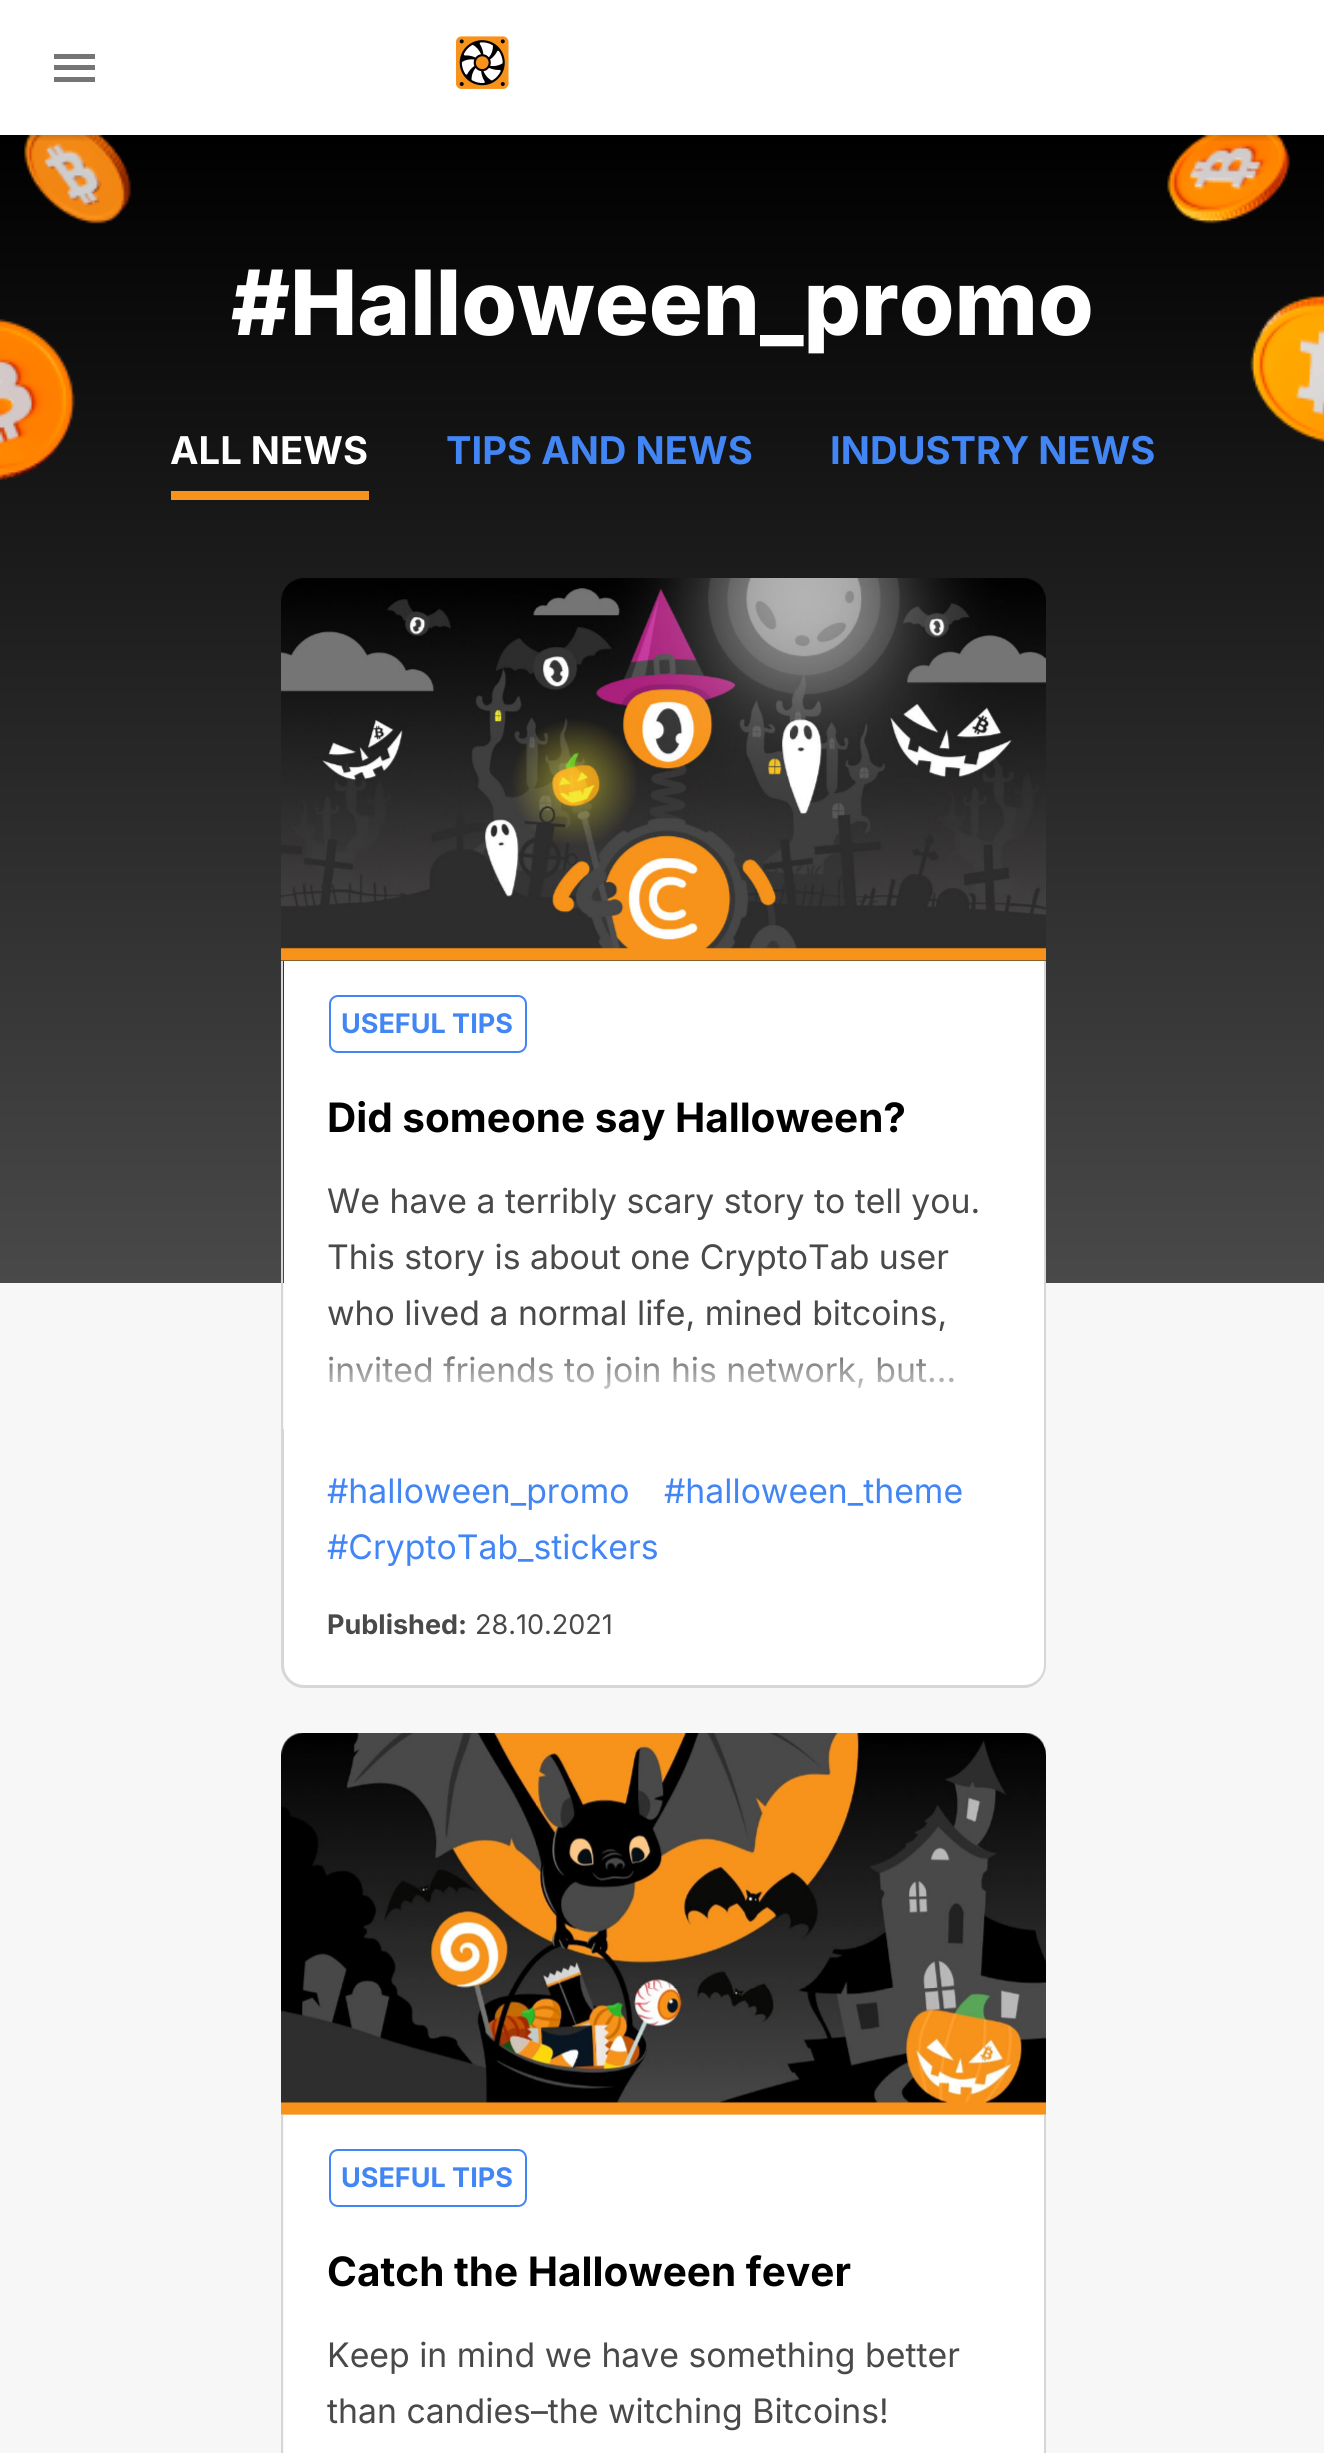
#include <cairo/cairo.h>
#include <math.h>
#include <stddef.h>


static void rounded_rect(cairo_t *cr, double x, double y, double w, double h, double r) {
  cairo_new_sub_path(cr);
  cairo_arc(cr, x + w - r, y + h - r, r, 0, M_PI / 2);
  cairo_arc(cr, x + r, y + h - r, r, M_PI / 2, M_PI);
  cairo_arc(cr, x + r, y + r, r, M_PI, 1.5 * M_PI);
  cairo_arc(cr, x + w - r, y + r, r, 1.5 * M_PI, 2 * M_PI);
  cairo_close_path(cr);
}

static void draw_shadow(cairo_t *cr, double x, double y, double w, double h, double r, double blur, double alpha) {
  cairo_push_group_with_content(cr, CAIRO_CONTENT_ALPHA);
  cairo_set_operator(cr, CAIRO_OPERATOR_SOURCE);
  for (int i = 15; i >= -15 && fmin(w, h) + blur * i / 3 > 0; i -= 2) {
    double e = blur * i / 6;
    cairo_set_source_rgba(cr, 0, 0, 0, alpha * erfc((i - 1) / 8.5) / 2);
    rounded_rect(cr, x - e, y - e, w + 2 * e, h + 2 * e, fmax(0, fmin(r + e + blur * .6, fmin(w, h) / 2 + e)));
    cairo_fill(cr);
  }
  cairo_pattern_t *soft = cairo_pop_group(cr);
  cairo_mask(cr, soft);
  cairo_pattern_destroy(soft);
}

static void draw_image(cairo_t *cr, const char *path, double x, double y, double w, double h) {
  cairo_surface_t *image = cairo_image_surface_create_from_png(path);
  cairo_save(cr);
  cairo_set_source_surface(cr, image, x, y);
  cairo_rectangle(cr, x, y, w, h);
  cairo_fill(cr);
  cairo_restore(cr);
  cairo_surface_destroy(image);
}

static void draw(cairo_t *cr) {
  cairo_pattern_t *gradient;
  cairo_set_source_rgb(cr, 1, 1, 1);
  cairo_paint(cr);
  gradient = cairo_pattern_create_linear(663, 135, 663, 1283);
  cairo_pattern_add_color_stop_rgba(gradient, 0, 0, 0, 0, 1);
  cairo_pattern_add_color_stop_rgba(gradient, 1, 73 / 255.0, 73 / 255.0, 73 / 255.0, 1);
  cairo_set_source(cr, gradient);
  cairo_pattern_destroy(gradient);
  cairo_rectangle(cr, 0, 135, 1324, 1148);
  cairo_fill(cr);
  draw_image(cr, "images/2.png", 0, 135, 132, 345);
  draw_image(cr, "images/3.png", 1167, 135, 157, 307);
  cairo_save(cr);
  cairo_rectangle(cr, 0, 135, 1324, 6);
  cairo_clip(cr);
  cairo_set_source_rgb(cr, 0, 0, 0);
  draw_shadow(cr, 0, 2, 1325, 135, 0, 3.5, 0.2);
  cairo_restore(cr);
  cairo_set_source_rgb(cr, 117 / 255.0, 117 / 255.0, 117 / 255.0);
  cairo_rectangle(cr, 54, 54, 41, 5);
  cairo_fill(cr);
  cairo_rectangle(cr, 54, 65, 41, 5);
  cairo_fill(cr);
  cairo_rectangle(cr, 54, 77, 41, 5);
  cairo_fill(cr);
  draw_image(cr, "images/1.png", 456, 36, 53, 53);
  cairo_set_source_rgb(cr, 247 / 255.0, 247 / 255.0, 247 / 255.0);
  cairo_rectangle(cr, 0, 1283, 1324, 1170);
  cairo_fill(cr);
  cairo_set_source_rgb(cr, 247 / 255.0, 147 / 255.0, 26 / 255.0);
  cairo_rectangle(cr, 171, 491, 198, 9);
  cairo_fill(cr);
  draw_image(cr, "images/4.png", 281, 578, 765, 383);
  cairo_set_source_rgb(cr, 1, 1, 1);
  cairo_rectangle(cr, 284, 961, 760, 450);
  cairo_fill(cr);
  cairo_set_source_rgb(cr, 214 / 255.0, 214 / 255.0, 214 / 255.0);
  cairo_rectangle(cr, 1044, 961, 2, 468);
  cairo_fill(cr);
  cairo_rectangle(cr, 281, 961, 2, 468);
  cairo_fill(cr);
  rounded_rect(cr, 330, 996, 196, 56, 8);
  cairo_set_source_rgb(cr, 66 / 255.0, 133 / 255.0, 244 / 255.0);
  cairo_stroke(cr);
  cairo_set_source_rgb(cr, 1, 1, 1);
  cairo_new_path(cr);
  cairo_move_to(cr, 284, 1429);
  cairo_line_to(cr, 1044, 1429);
  cairo_line_to(cr, 1044, 1665);
  cairo_curve_to(cr, 1044, 1676, 1035, 1685, 1024, 1685);
  cairo_line_to(cr, 304, 1685);
  cairo_curve_to(cr, 293, 1685, 284, 1676, 284, 1665);
  cairo_close_path(cr);
  cairo_fill(cr);
  cairo_set_source_rgb(cr, 214 / 255.0, 214 / 255.0, 214 / 255.0);
  cairo_set_fill_rule(cr, CAIRO_FILL_RULE_EVEN_ODD);
  cairo_new_path(cr);
  cairo_move_to(cr, 281, 1429);
  cairo_line_to(cr, 1046, 1429);
  cairo_line_to(cr, 1046, 1665);
  cairo_curve_to(cr, 1046, 1677, 1036, 1688, 1024, 1688);
  cairo_line_to(cr, 304, 1688);
  cairo_curve_to(cr, 291, 1688, 281, 1677, 281, 1665);
  cairo_close_path(cr);
  cairo_move_to(cr, 284, 1429);
  cairo_line_to(cr, 1044, 1429);
  cairo_line_to(cr, 1044, 1665);
  cairo_curve_to(cr, 1044, 1676, 1035, 1685, 1024, 1685);
  cairo_line_to(cr, 304, 1685);
  cairo_curve_to(cr, 293, 1685, 284, 1676, 284, 1665);
  cairo_close_path(cr);
  cairo_fill(cr);
  draw_image(cr, "images/5.png", 281, 1733, 765, 383);
  cairo_set_source_rgb(cr, 1, 1, 1);
  cairo_rectangle(cr, 284, 2115, 760, 338);
  cairo_fill(cr);
  cairo_set_source_rgb(cr, 214 / 255.0, 214 / 255.0, 214 / 255.0);
  cairo_rectangle(cr, 1044, 2115, 2, 338);
  cairo_fill(cr);
  cairo_rectangle(cr, 281, 2115, 2, 338);
  cairo_fill(cr);
  rounded_rect(cr, 330, 2150, 196, 56, 8);
  cairo_set_source_rgb(cr, 66 / 255.0, 133 / 255.0, 244 / 255.0);
  cairo_stroke(cr);
  cairo_select_font_face(cr, "Inter ExtraBold", CAIRO_FONT_SLANT_NORMAL, CAIRO_FONT_WEIGHT_NORMAL);
  cairo_set_font_size(cr, 90);
  cairo_set_source_rgb(cr, 1, 1, 1);
  cairo_move_to(cr, 231, 335);
  cairo_show_text(cr, "#Halloween_promo");
  cairo_select_font_face(cr, "Inter", CAIRO_FONT_SLANT_NORMAL, CAIRO_FONT_WEIGHT_BOLD);
  cairo_set_font_size(cr, 38.25);
  cairo_move_to(cr, 170, 464);
  cairo_show_text(cr, "ALL NEWS");
  cairo_set_source_rgb(cr, 66 / 255.0, 133 / 255.0, 244 / 255.0);
  cairo_move_to(cr, 446, 464);
  cairo_show_text(cr, "TIPS AND NEWS");
  cairo_move_to(cr, 830, 464);
  cairo_show_text(cr, "INDUSTRY NEWS");
  cairo_set_font_size(cr, 27);
  cairo_move_to(cr, 341, 1033);
  cairo_show_text(cr, "USEFUL TIPS");
  cairo_set_font_size(cr, 40.5);
  cairo_set_source_rgb(cr, 0, 0, 0);
  cairo_move_to(cr, 327, 1132);
  cairo_show_text(cr, "Did someone say Halloween?");
  cairo_select_font_face(cr, "Inter", CAIRO_FONT_SLANT_NORMAL, CAIRO_FONT_WEIGHT_NORMAL);
  cairo_set_font_size(cr, 33.75);
  cairo_set_source_rgb(cr, 73 / 255.0, 73 / 255.0, 73 / 255.0);
  cairo_move_to(cr, 327, 1213);
  cairo_show_text(cr, "We have a terribly scary story to tell you.");
  cairo_move_to(cr, 327, 1269);
  cairo_show_text(cr, "This story is about one CryptoTab user");
  cairo_move_to(cr, 327, 1325);
  cairo_show_text(cr, "who lived a normal life, mined bitcoins,");
  cairo_move_to(cr, 327, 1382);
  cairo_show_text(cr, "invited friends to join his network, but…");
  gradient = cairo_pattern_create_linear(664, 1429, 664, 1339);
  cairo_pattern_add_color_stop_rgba(gradient, 0.2, 1, 1, 1, 1);
  cairo_pattern_add_color_stop_rgba(gradient, 1, 1, 1, 1, 0);
  cairo_set_source(cr, gradient);
  cairo_pattern_destroy(gradient);
  cairo_rectangle(cr, 284, 1356, 760, 73);
  cairo_fill(cr);
  cairo_set_source_rgb(cr, 66 / 255.0, 133 / 255.0, 244 / 255.0);
  cairo_move_to(cr, 327, 1503);
  cairo_show_text(cr, "#halloween_promo");
  cairo_move_to(cr, 664, 1503);
  cairo_show_text(cr, "#halloween_theme");
  cairo_move_to(cr, 327, 1559);
  cairo_show_text(cr, "#CryptoTab_stickers");
  cairo_select_font_face(cr, "Inter", CAIRO_FONT_SLANT_NORMAL, CAIRO_FONT_WEIGHT_BOLD);
  cairo_set_font_size(cr, 27);
  cairo_set_source_rgb(cr, 73 / 255.0, 73 / 255.0, 73 / 255.0);
  cairo_move_to(cr, 327, 1634);
  cairo_show_text(cr, "Published:");
  cairo_select_font_face(cr, "Inter", CAIRO_FONT_SLANT_NORMAL, CAIRO_FONT_WEIGHT_NORMAL);
  cairo_move_to(cr, 475, 1634);
  cairo_show_text(cr, "28.10.2021");
  cairo_select_font_face(cr, "Inter", CAIRO_FONT_SLANT_NORMAL, CAIRO_FONT_WEIGHT_BOLD);
  cairo_set_source_rgb(cr, 66 / 255.0, 133 / 255.0, 244 / 255.0);
  cairo_move_to(cr, 341, 2187);
  cairo_show_text(cr, "USEFUL TIPS");
  cairo_set_font_size(cr, 40.5);
  cairo_set_source_rgb(cr, 0, 0, 0);
  cairo_move_to(cr, 327, 2286);
  cairo_show_text(cr, "Catch the Halloween fever");
  cairo_select_font_face(cr, "Inter", CAIRO_FONT_SLANT_NORMAL, CAIRO_FONT_WEIGHT_NORMAL);
  cairo_set_font_size(cr, 33.75);
  cairo_set_source_rgb(cr, 73 / 255.0, 73 / 255.0, 73 / 255.0);
  cairo_move_to(cr, 327, 2367);
  cairo_show_text(cr, "Keep in mind we have something better");
  cairo_move_to(cr, 327, 2423);
  cairo_show_text(cr, "than candies–the witching Bitcoins!");
}

int main(void) {
  cairo_surface_t *surface = cairo_image_surface_create(CAIRO_FORMAT_RGB24, 1324, 2453);
  cairo_t *cr = cairo_create(surface);
  cairo_font_options_t *options = cairo_font_options_create();
  cairo_font_options_set_hint_metrics(options, CAIRO_HINT_METRICS_OFF);
  cairo_font_options_set_hint_style(options, CAIRO_HINT_STYLE_NONE);
  cairo_set_font_options(cr, options);
  cairo_set_miter_limit(cr, 4);
  draw(cr);
  cairo_surface_write_to_png(surface, "out.png");
  cairo_font_options_destroy(options);
  cairo_destroy(cr);
  cairo_surface_destroy(surface);
  return 0;
}
